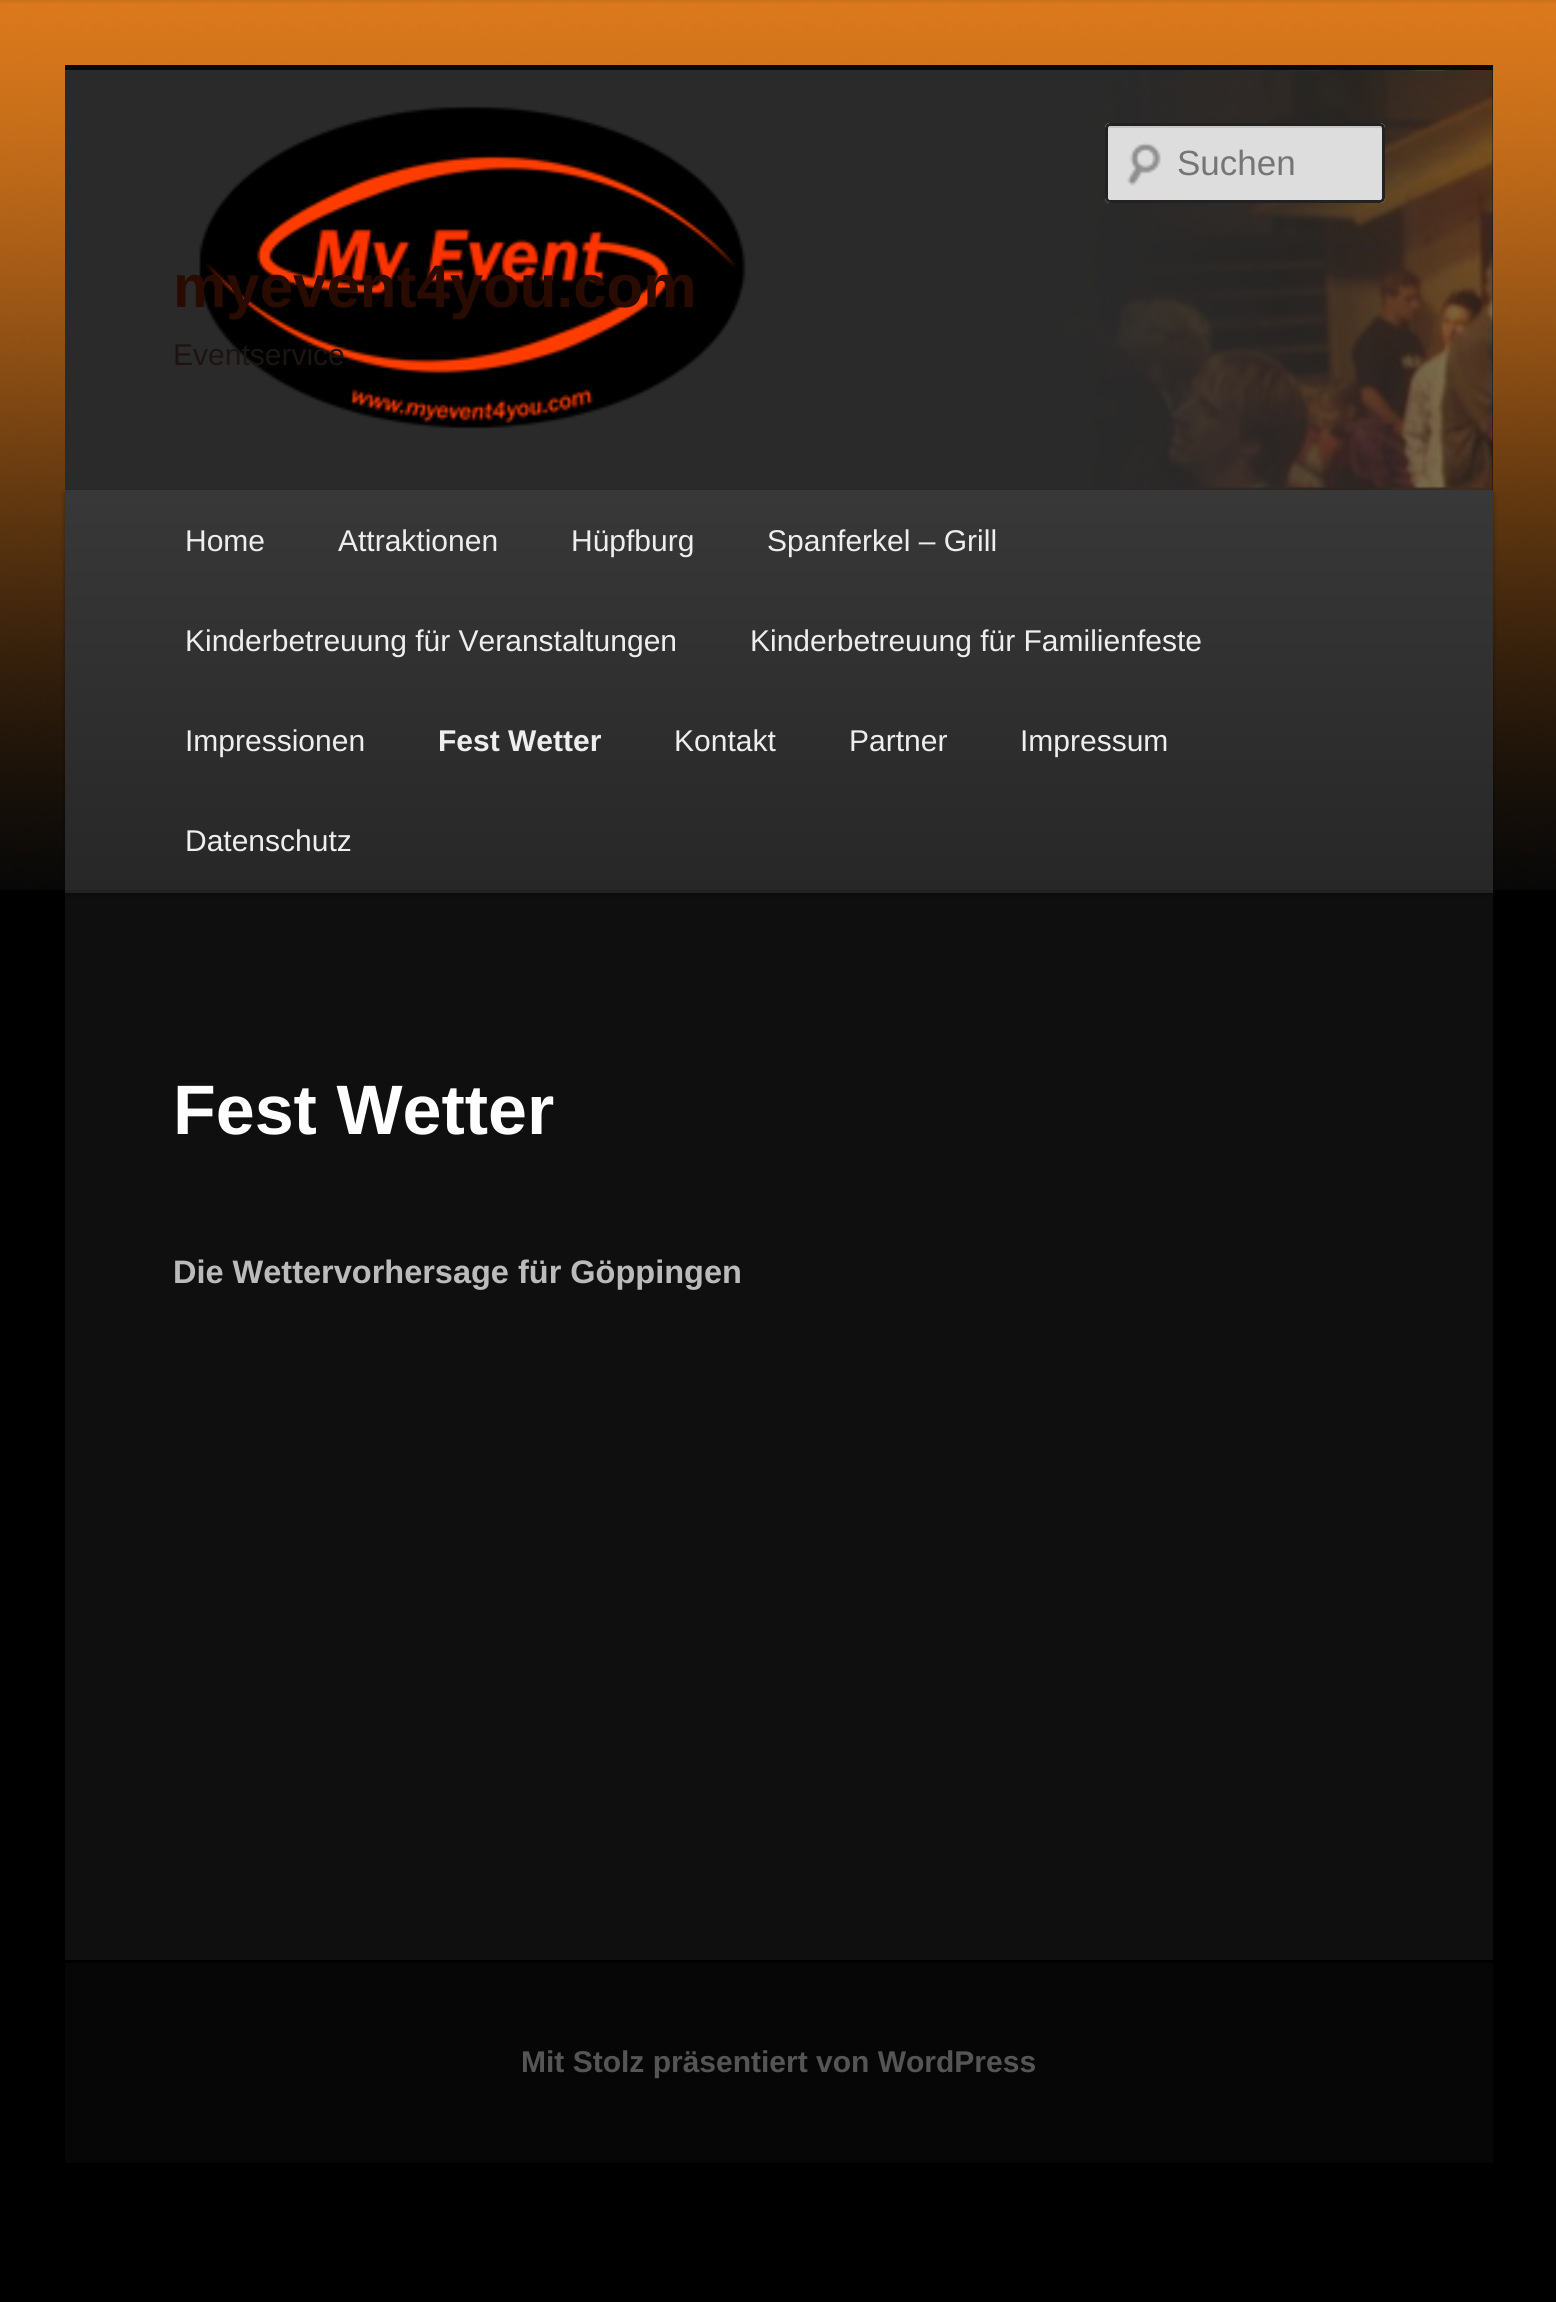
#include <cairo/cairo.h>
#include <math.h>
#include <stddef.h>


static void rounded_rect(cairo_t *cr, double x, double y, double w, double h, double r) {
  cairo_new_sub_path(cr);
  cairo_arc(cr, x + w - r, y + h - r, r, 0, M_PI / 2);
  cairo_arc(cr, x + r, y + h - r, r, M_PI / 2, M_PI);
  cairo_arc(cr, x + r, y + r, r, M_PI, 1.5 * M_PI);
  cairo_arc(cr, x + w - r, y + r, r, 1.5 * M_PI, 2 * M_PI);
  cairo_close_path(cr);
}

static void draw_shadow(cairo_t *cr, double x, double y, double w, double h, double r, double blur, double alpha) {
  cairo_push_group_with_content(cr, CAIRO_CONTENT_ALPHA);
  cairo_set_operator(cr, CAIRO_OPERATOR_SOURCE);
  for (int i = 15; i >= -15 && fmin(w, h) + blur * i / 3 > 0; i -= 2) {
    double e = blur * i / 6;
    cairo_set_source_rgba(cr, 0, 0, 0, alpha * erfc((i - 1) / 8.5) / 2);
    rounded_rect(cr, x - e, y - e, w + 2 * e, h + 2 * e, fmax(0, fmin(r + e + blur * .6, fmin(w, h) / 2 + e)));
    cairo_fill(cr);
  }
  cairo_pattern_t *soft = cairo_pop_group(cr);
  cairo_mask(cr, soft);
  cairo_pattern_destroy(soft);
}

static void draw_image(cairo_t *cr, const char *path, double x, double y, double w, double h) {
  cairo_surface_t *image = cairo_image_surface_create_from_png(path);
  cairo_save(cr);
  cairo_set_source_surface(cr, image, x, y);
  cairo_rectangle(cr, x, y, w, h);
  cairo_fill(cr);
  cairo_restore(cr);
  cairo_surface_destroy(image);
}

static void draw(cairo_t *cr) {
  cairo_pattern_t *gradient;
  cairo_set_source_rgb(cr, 0, 0, 0);
  cairo_paint(cr);
  draw_image(cr, "images/1.png", 0, 0, 1556, 890);
  cairo_set_source_rgb(cr, 15 / 255.0, 15 / 255.0, 15 / 255.0);
  cairo_rectangle(cr, 65, 70, 1428, 1890);
  cairo_fill(cr);
  draw_image(cr, "images/2.png", 65, 70, 1428, 420);
  cairo_set_source_rgb(cr, 10 / 255.0, 10 / 255.0, 10 / 255.0);
  cairo_rectangle(cr, 65, 65, 1428, 5);
  cairo_fill(cr);
  cairo_set_source_rgb(cr, 221 / 255.0, 221 / 255.0, 221 / 255.0);
  rounded_rect(cr, 1105, 123, 280, 80, 5);
  cairo_fill(cr);
  draw_image(cr, "images/3.png", 1127, 142, 34, 44);
  cairo_set_source_rgb(cr, 199 / 255.0, 199 / 255.0, 199 / 255.0);
  cairo_new_path(cr);
  cairo_move_to(cr, 1110, 128);
  cairo_line_to(cr, 1380, 128);
  cairo_curve_to(cr, 1381, 128, 1382, 129, 1382, 130);
  cairo_line_to(cr, 1382, 200);
  cairo_curve_to(cr, 1383, 199, 1383, 198, 1383, 198);
  cairo_line_to(cr, 1383, 128);
  cairo_curve_to(cr, 1383, 126, 1382, 125, 1380, 125);
  cairo_line_to(cr, 1110, 125);
  cairo_curve_to(cr, 1109, 125, 1108, 126, 1108, 128);
  cairo_line_to(cr, 1108, 130);
  cairo_curve_to(cr, 1108, 129, 1109, 128, 1110, 128);
  cairo_close_path(cr);
  cairo_fill(cr);
  rounded_rect(cr, 1106.5, 124.5, 277, 77, 3.5);
  cairo_set_source_rgb(cr, 34 / 255.0, 34 / 255.0, 34 / 255.0);
  cairo_set_line_width(cr, 3);
  cairo_stroke(cr);
  cairo_set_source_rgb(cr, 0, 0, 0);
  draw_shadow(cr, 65, 493, 1428, 402, 0, 2.5, 0.4);
  gradient = cairo_pattern_create_linear(779, 490, 779, 890);
  cairo_pattern_add_color_stop_rgba(gradient, 0, 56 / 255.0, 56 / 255.0, 56 / 255.0, 1);
  cairo_pattern_add_color_stop_rgba(gradient, 1, 39 / 255.0, 39 / 255.0, 39 / 255.0, 1);
  cairo_set_source(cr, gradient);
  cairo_pattern_destroy(gradient);
  cairo_rectangle(cr, 65, 490, 1428, 400);
  cairo_fill(cr);
  cairo_set_source_rgb(cr, 34 / 255.0, 34 / 255.0, 34 / 255.0);
  cairo_rectangle(cr, 65, 890, 1428, 3);
  cairo_fill(cr);
  cairo_set_source_rgb(cr, 6 / 255.0, 6 / 255.0, 6 / 255.0);
  cairo_rectangle(cr, 65, 1963, 1428, 200);
  cairo_fill(cr);
  cairo_select_font_face(cr, "Liberation Sans", CAIRO_FONT_SLANT_NORMAL, CAIRO_FONT_WEIGHT_NORMAL);
  cairo_set_font_size(cr, 35);
  cairo_set_source_rgb(cr, 117 / 255.0, 117 / 255.0, 117 / 255.0);
  cairo_move_to(cr, 1177, 175);
  cairo_show_text(cr, "Suchen");
  cairo_select_font_face(cr, "Liberation Sans", CAIRO_FONT_SLANT_NORMAL, CAIRO_FONT_WEIGHT_BOLD);
  cairo_set_font_size(cr, 60);
  cairo_set_source_rgb(cr, 42 / 255.0, 11 / 255.0, 2 / 255.0);
  cairo_move_to(cr, 173, 307);
  cairo_show_text(cr, "myevent4you.com");
  cairo_select_font_face(cr, "Liberation Sans", CAIRO_FONT_SLANT_NORMAL, CAIRO_FONT_WEIGHT_NORMAL);
  cairo_set_font_size(cr, 30);
  cairo_set_source_rgb(cr, 27 / 255.0, 20 / 255.0, 17 / 255.0);
  cairo_move_to(cr, 173, 365);
  cairo_show_text(cr, "Eventservice");
  cairo_set_source_rgb(cr, 238 / 255.0, 238 / 255.0, 238 / 255.0);
  cairo_move_to(cr, 185, 551);
  cairo_show_text(cr, "Home");
  cairo_move_to(cr, 338, 551);
  cairo_show_text(cr, "Attraktionen");
  cairo_move_to(cr, 571, 551);
  cairo_show_text(cr, "Hüpfburg");
  cairo_move_to(cr, 767, 551);
  cairo_show_text(cr, "Spanferkel – Grill");
  cairo_move_to(cr, 185, 651);
  cairo_show_text(cr, "Kinderbetreuung für Veranstaltungen");
  cairo_move_to(cr, 750, 651);
  cairo_show_text(cr, "Kinderbetreuung für Familienfeste");
  cairo_move_to(cr, 185, 751);
  cairo_show_text(cr, "Impressionen");
  cairo_select_font_face(cr, "Liberation Sans", CAIRO_FONT_SLANT_NORMAL, CAIRO_FONT_WEIGHT_BOLD);
  cairo_move_to(cr, 438, 751);
  cairo_show_text(cr, "Fest Wetter");
  cairo_select_font_face(cr, "Liberation Sans", CAIRO_FONT_SLANT_NORMAL, CAIRO_FONT_WEIGHT_NORMAL);
  cairo_move_to(cr, 674, 751);
  cairo_show_text(cr, "Kontakt");
  cairo_move_to(cr, 849, 751);
  cairo_show_text(cr, "Partner");
  cairo_move_to(cr, 1020, 751);
  cairo_show_text(cr, "Impressum");
  cairo_move_to(cr, 185, 851);
  cairo_show_text(cr, "Datenschutz");
  cairo_select_font_face(cr, "Liberation Sans", CAIRO_FONT_SLANT_NORMAL, CAIRO_FONT_WEIGHT_BOLD);
  cairo_set_font_size(cr, 70);
  cairo_set_source_rgb(cr, 1, 1, 1);
  cairo_move_to(cr, 173, 1134);
  cairo_show_text(cr, "Fest Wetter");
  cairo_set_font_size(cr, 32.5);
  cairo_set_source_rgb(cr, 187 / 255.0, 187 / 255.0, 187 / 255.0);
  cairo_move_to(cr, 173, 1283);
  cairo_show_text(cr, "Die Wettervorhersage für Göppingen");
  cairo_set_font_size(cr, 30);
  cairo_set_source_rgb(cr, 85 / 255.0, 85 / 255.0, 85 / 255.0);
  cairo_move_to(cr, 521, 2072);
  cairo_show_text(cr, "Mit Stolz präsentiert von WordPress");
}

int main(void) {
  cairo_surface_t *surface = cairo_image_surface_create(CAIRO_FORMAT_RGB24, 1556, 2302);
  cairo_t *cr = cairo_create(surface);
  cairo_font_options_t *options = cairo_font_options_create();
  cairo_font_options_set_hint_metrics(options, CAIRO_HINT_METRICS_OFF);
  cairo_font_options_set_hint_style(options, CAIRO_HINT_STYLE_NONE);
  cairo_set_font_options(cr, options);
  cairo_set_miter_limit(cr, 4);
  draw(cr);
  cairo_surface_write_to_png(surface, "out.png");
  cairo_font_options_destroy(options);
  cairo_destroy(cr);
  cairo_surface_destroy(surface);
  return 0;
}
